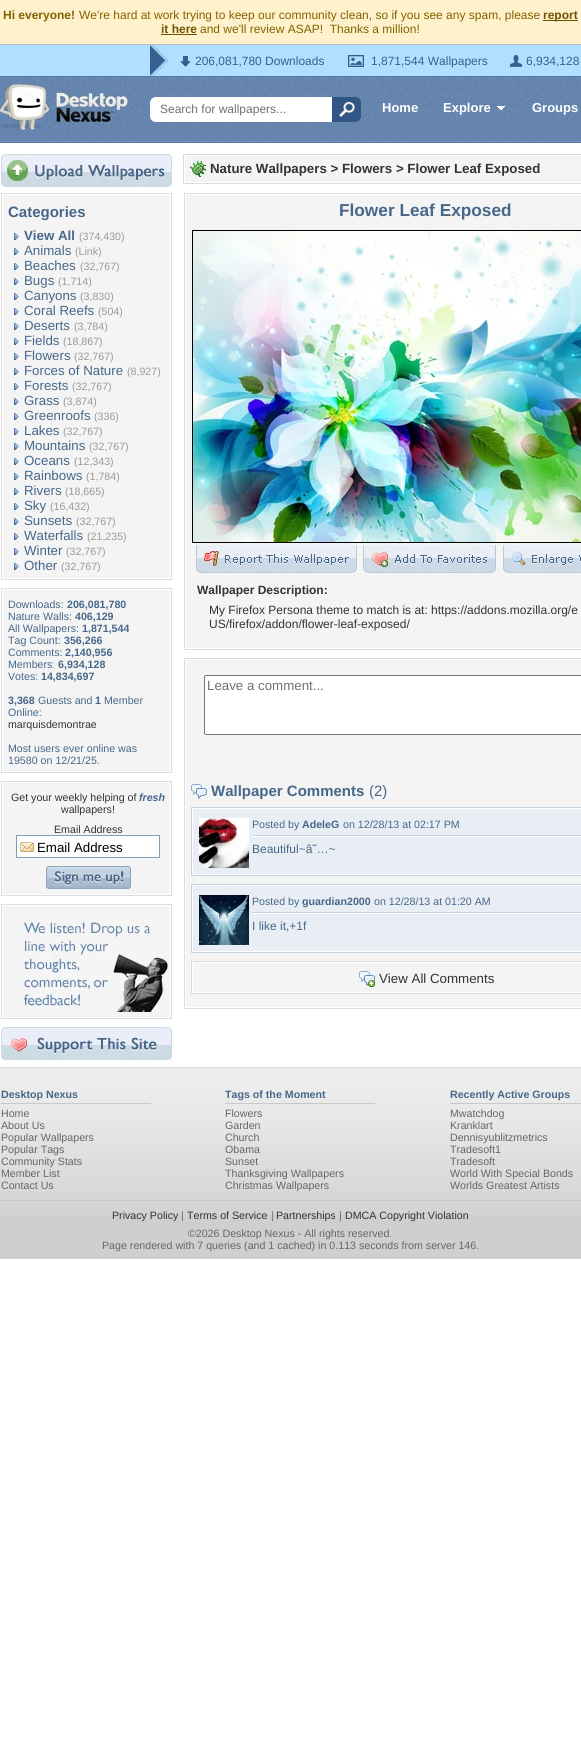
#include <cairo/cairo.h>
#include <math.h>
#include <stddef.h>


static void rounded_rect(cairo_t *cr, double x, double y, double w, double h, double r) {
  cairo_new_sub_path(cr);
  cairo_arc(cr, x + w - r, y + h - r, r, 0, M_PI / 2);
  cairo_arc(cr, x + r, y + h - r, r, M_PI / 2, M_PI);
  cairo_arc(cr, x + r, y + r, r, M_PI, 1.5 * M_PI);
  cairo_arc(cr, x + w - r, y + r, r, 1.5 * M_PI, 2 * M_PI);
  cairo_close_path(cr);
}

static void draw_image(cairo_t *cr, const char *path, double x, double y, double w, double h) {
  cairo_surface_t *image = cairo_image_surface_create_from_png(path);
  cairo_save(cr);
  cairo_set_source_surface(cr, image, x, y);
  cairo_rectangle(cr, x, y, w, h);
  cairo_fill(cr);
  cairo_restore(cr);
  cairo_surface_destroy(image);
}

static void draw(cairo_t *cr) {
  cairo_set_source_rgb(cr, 1, 1, 1);
  cairo_paint(cr);
  cairo_set_source_rgb(cr, 1, 241 / 255.0, 203 / 255.0);
  cairo_rectangle(cr, 0, 0, 581, 44);
  cairo_fill(cr);
  cairo_set_source_rgb(cr, 112 / 255.0, 85 / 255.0, 0);
  cairo_rectangle(cr, 543, 20, 35, 1);
  cairo_fill(cr);
  cairo_rectangle(cr, 161, 34, 36, 1);
  cairo_fill(cr);
  cairo_set_source_rgb(cr, 177 / 255.0, 223 / 255.0, 1);
  cairo_rectangle(cr, 0, 45, 581, 31);
  cairo_fill(cr);
  cairo_set_source_rgb(cr, 182 / 255.0, 186 / 255.0, 192 / 255.0);
  cairo_rectangle(cr, 0, 44, 581, 1);
  cairo_fill(cr);
  draw_image(cr, "images/1.png", 150, 45, 19, 31);
  draw_image(cr, "images/2.png", 180, 56, 11, 11);
  draw_image(cr, "images/3.png", 348, 55, 16, 12);
  draw_image(cr, "images/4.png", 510, 55, 12, 12);
  draw_image(cr, "images/5.png", 0, 76, 581, 67);
  draw_image(cr, "images/6.png", 0, 84, 128, 46);
  cairo_set_source_rgb(cr, 1, 1, 1);
  cairo_new_path(cr);
  cairo_move_to(cr, 156, 97);
  cairo_line_to(cr, 348, 97);
  cairo_line_to(cr, 348, 122);
  cairo_line_to(cr, 156, 122);
  cairo_curve_to(cr, 152.5, 122, 150, 119.5, 150, 116);
  cairo_line_to(cr, 150, 103);
  cairo_curve_to(cr, 150, 99.5, 152.5, 97, 156, 97);
  cairo_close_path(cr);
  cairo_fill(cr);
  cairo_set_source_rgb(cr, 48 / 255.0, 86 / 255.0, 134 / 255.0);
  cairo_new_path(cr);
  cairo_move_to(cr, 332, 97);
  cairo_line_to(cr, 355, 97);
  cairo_curve_to(cr, 358.5, 97, 361, 99.5, 361, 103);
  cairo_line_to(cr, 361, 116);
  cairo_curve_to(cr, 361, 119.5, 358.5, 122, 355, 122);
  cairo_line_to(cr, 332, 122);
  cairo_close_path(cr);
  cairo_fill(cr);
  draw_image(cr, "images/7.png", 339, 102, 16, 15);
  draw_image(cr, "images/8.png", 496, 106, 10, 5);
  draw_image(cr, "images/9.png", 1, 154, 171, 33);
  cairo_rectangle(cr, 1.5, 193.5, 170, 386);
  cairo_set_source_rgb(cr, 220 / 255.0, 220 / 255.0, 220 / 255.0);
  cairo_set_line_width(cr, 1);
  cairo_stroke(cr);
  cairo_set_source_rgb(cr, 244 / 255.0, 244 / 255.0, 244 / 255.0);
  cairo_rectangle(cr, 3, 195, 167, 383);
  cairo_fill(cr);
  draw_image(cr, "images/10.png", 14, 233, 5, 7);
  draw_image(cr, "images/10.png", 14, 248, 5, 7);
  draw_image(cr, "images/10.png", 14, 263, 5, 7);
  draw_image(cr, "images/10.png", 14, 278, 5, 7);
  draw_image(cr, "images/10.png", 14, 293, 5, 7);
  draw_image(cr, "images/10.png", 14, 308, 5, 7);
  draw_image(cr, "images/10.png", 14, 323, 5, 7);
  draw_image(cr, "images/10.png", 14, 338, 5, 7);
  draw_image(cr, "images/10.png", 14, 353, 5, 7);
  draw_image(cr, "images/10.png", 14, 368, 5, 7);
  draw_image(cr, "images/10.png", 14, 383, 5, 7);
  draw_image(cr, "images/10.png", 14, 398, 5, 7);
  draw_image(cr, "images/10.png", 14, 413, 5, 7);
  draw_image(cr, "images/10.png", 14, 428, 5, 7);
  draw_image(cr, "images/10.png", 14, 443, 5, 7);
  draw_image(cr, "images/10.png", 14, 458, 5, 7);
  draw_image(cr, "images/10.png", 14, 473, 5, 7);
  draw_image(cr, "images/10.png", 14, 488, 5, 7);
  draw_image(cr, "images/10.png", 14, 503, 5, 7);
  draw_image(cr, "images/10.png", 14, 518, 5, 7);
  draw_image(cr, "images/10.png", 14, 533, 5, 7);
  draw_image(cr, "images/10.png", 14, 548, 5, 7);
  draw_image(cr, "images/10.png", 14, 563, 5, 7);
  cairo_rectangle(cr, 1.5, 588.5, 170, 184);
  cairo_set_source_rgb(cr, 220 / 255.0, 220 / 255.0, 220 / 255.0);
  cairo_stroke(cr);
  cairo_set_source_rgb(cr, 244 / 255.0, 244 / 255.0, 244 / 255.0);
  cairo_rectangle(cr, 3, 590, 167, 181);
  cairo_fill(cr);
  cairo_rectangle(cr, 1.5, 781.5, 170, 114);
  cairo_set_source_rgb(cr, 220 / 255.0, 220 / 255.0, 220 / 255.0);
  cairo_stroke(cr);
  cairo_set_source_rgb(cr, 244 / 255.0, 244 / 255.0, 244 / 255.0);
  cairo_rectangle(cr, 3, 783, 167, 111);
  cairo_fill(cr);
  cairo_set_source_rgb(cr, 1, 1, 1);
  cairo_rectangle(cr, 17, 836, 142, 21);
  cairo_fill(cr);
  draw_image(cr, "images/11.png", 17, 842, 17, 10);
  cairo_rectangle(cr, 16.5, 835.5, 143, 22);
  cairo_set_source_rgb(cr, 127 / 255.0, 157 / 255.0, 185 / 255.0);
  cairo_stroke(cr);
  draw_image(cr, "images/12.png", 46, 866, 85, 23);
  cairo_rectangle(cr, 1.5, 904.5, 170, 114);
  cairo_set_source_rgb(cr, 220 / 255.0, 220 / 255.0, 220 / 255.0);
  cairo_stroke(cr);
  cairo_set_source_rgb(cr, 244 / 255.0, 244 / 255.0, 244 / 255.0);
  cairo_rectangle(cr, 3, 906, 167, 111);
  cairo_fill(cr);
  draw_image(cr, "images/13.png", 21, 921, 147, 91);
  draw_image(cr, "images/14.png", 1, 1027, 171, 33);
  cairo_rectangle(cr, 183.5, 154.5, 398, 29);
  cairo_set_source_rgb(cr, 220 / 255.0, 220 / 255.0, 220 / 255.0);
  cairo_stroke(cr);
  cairo_set_source_rgb(cr, 244 / 255.0, 244 / 255.0, 244 / 255.0);
  cairo_rectangle(cr, 185, 156, 396, 26);
  cairo_fill(cr);
  draw_image(cr, "images/15.png", 190, 161, 16, 16);
  cairo_rectangle(cr, 184.5, 193.5, 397, 456);
  cairo_set_source_rgb(cr, 220 / 255.0, 220 / 255.0, 220 / 255.0);
  cairo_stroke(cr);
  cairo_set_source_rgb(cr, 244 / 255.0, 244 / 255.0, 244 / 255.0);
  cairo_rectangle(cr, 186, 195, 395, 453);
  cairo_fill(cr);
  cairo_rectangle(cr, 192.5, 230.5, 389, 312);
  cairo_set_source_rgb(cr, 0, 0, 0);
  cairo_stroke(cr);
  draw_image(cr, "images/16.png", 193, 231, 388, 311);
  draw_image(cr, "images/17.png", 196, 545, 161, 28);
  draw_image(cr, "images/18.png", 363, 545, 133, 28);
  draw_image(cr, "images/19.png", 503, 545, 78, 28);
  cairo_rectangle(cr, 184.5, 658.5, 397, 350);
  cairo_set_source_rgb(cr, 220 / 255.0, 220 / 255.0, 220 / 255.0);
  cairo_stroke(cr);
  cairo_set_source_rgb(cr, 244 / 255.0, 244 / 255.0, 244 / 255.0);
  cairo_rectangle(cr, 186, 660, 395, 347);
  cairo_fill(cr);
  cairo_set_source_rgb(cr, 1, 1, 1);
  rounded_rect(cr, 204.5, 675.5, 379, 59, 1.5);
  cairo_fill_preserve(cr);
  cairo_set_source_rgb(cr, 118 / 255.0, 118 / 255.0, 118 / 255.0);
  cairo_stroke(cr);
  draw_image(cr, "images/20.png", 191, 784, 16, 15);
  cairo_set_source_rgb(cr, 1, 1, 1);
  cairo_rectangle(cr, 191.5, 807.5, 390, 68);
  cairo_fill_preserve(cr);
  cairo_set_source_rgb(cr, 197 / 255.0, 210 / 255.0, 226 / 255.0);
  cairo_stroke(cr);
  cairo_set_source_rgb(cr, 233 / 255.0, 238 / 255.0, 244 / 255.0);
  cairo_rectangle(cr, 193, 809, 388, 65);
  cairo_fill(cr);
  draw_image(cr, "images/21.png", 199, 818, 50, 50);
  cairo_set_source_rgb(cr, 197 / 255.0, 210 / 255.0, 227 / 255.0);
  cairo_rectangle(cr, 252, 835, 329, 1);
  cairo_fill(cr);
  cairo_set_source_rgb(cr, 1, 1, 1);
  cairo_rectangle(cr, 252, 836, 329, 1);
  cairo_fill(cr);
  cairo_rectangle(cr, 191.5, 884.5, 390, 68);
  cairo_fill_preserve(cr);
  cairo_set_source_rgb(cr, 197 / 255.0, 210 / 255.0, 226 / 255.0);
  cairo_stroke(cr);
  cairo_set_source_rgb(cr, 233 / 255.0, 238 / 255.0, 244 / 255.0);
  cairo_rectangle(cr, 193, 886, 388, 65);
  cairo_fill(cr);
  draw_image(cr, "images/22.png", 199, 895, 50, 50);
  cairo_set_source_rgb(cr, 197 / 255.0, 210 / 255.0, 227 / 255.0);
  cairo_rectangle(cr, 252, 912, 329, 1);
  cairo_fill(cr);
  cairo_set_source_rgb(cr, 1, 1, 1);
  cairo_rectangle(cr, 252, 913, 329, 1);
  cairo_fill(cr);
  cairo_rectangle(cr, 191.5, 961.5, 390, 32);
  cairo_fill_preserve(cr);
  cairo_set_source_rgb(cr, 220 / 255.0, 220 / 255.0, 220 / 255.0);
  cairo_stroke(cr);
  cairo_set_source_rgb(cr, 244 / 255.0, 244 / 255.0, 244 / 255.0);
  cairo_rectangle(cr, 193, 963, 388, 29);
  cairo_fill(cr);
  draw_image(cr, "images/23.png", 359, 971, 16, 16);
  cairo_set_source_rgb(cr, 207 / 255.0, 207 / 255.0, 207 / 255.0);
  cairo_rectangle(cr, 0, 1215, 581, 44);
  cairo_fill(cr);
  draw_image(cr, "images/24.png", 0, 1067, 581, 148);
  cairo_set_source_rgb(cr, 201 / 255.0, 201 / 255.0, 201 / 255.0);
  cairo_rectangle(cr, 1, 1103, 150, 1);
  cairo_fill(cr);
  cairo_rectangle(cr, 225, 1103, 150, 1);
  cairo_fill(cr);
  cairo_rectangle(cr, 450, 1103, 131, 1);
  cairo_fill(cr);
  cairo_rectangle(cr, 0, 1200, 581, 1);
  cairo_fill(cr);
  cairo_select_font_face(cr, "Liberation Sans", CAIRO_FONT_SLANT_NORMAL, CAIRO_FONT_WEIGHT_BOLD);
  cairo_set_font_size(cr, 12);
  cairo_set_source_rgb(cr, 130 / 255.0, 98 / 255.0, 0);
  cairo_move_to(cr, 3, 19);
  cairo_show_text(cr, "Hi everyone!");
  cairo_select_font_face(cr, "Liberation Sans", CAIRO_FONT_SLANT_NORMAL, CAIRO_FONT_WEIGHT_NORMAL);
  cairo_move_to(cr, 79, 19);
  cairo_show_text(cr, "We're hard at work trying to keep our community clean, so if you see any spam, please");
  cairo_select_font_face(cr, "Liberation Sans", CAIRO_FONT_SLANT_NORMAL, CAIRO_FONT_WEIGHT_BOLD);
  cairo_set_source_rgb(cr, 112 / 255.0, 85 / 255.0, 0);
  cairo_move_to(cr, 543, 19);
  cairo_show_text(cr, "report");
  cairo_move_to(cr, 161, 33);
  cairo_show_text(cr, "it here");
  cairo_select_font_face(cr, "Liberation Sans", CAIRO_FONT_SLANT_NORMAL, CAIRO_FONT_WEIGHT_NORMAL);
  cairo_set_source_rgb(cr, 130 / 255.0, 98 / 255.0, 0);
  cairo_move_to(cr, 200, 33);
  cairo_show_text(cr, "and we'll review ASAP!  Thanks a million!");
  cairo_set_source_rgb(cr, 55 / 255.0, 94 / 255.0, 144 / 255.0);
  cairo_move_to(cr, 195, 65);
  cairo_show_text(cr, "206,081,780 Downloads");
  cairo_move_to(cr, 371, 65);
  cairo_show_text(cr, "1,871,544 Wallpapers");
  cairo_move_to(cr, 526, 65);
  cairo_show_text(cr, "6,934,128");
  cairo_set_source_rgb(cr, 112 / 255.0, 112 / 255.0, 112 / 255.0);
  cairo_move_to(cr, 160, 113);
  cairo_show_text(cr, "Search for wallpapers...");
  cairo_select_font_face(cr, "Liberation Sans", CAIRO_FONT_SLANT_NORMAL, CAIRO_FONT_WEIGHT_BOLD);
  cairo_set_font_size(cr, 13);
  cairo_set_source_rgb(cr, 1, 1, 1);
  cairo_move_to(cr, 382, 112);
  cairo_show_text(cr, "Home");
  cairo_move_to(cr, 443, 112);
  cairo_show_text(cr, "Explore");
  cairo_move_to(cr, 532, 112);
  cairo_show_text(cr, "Groups");
  cairo_set_font_size(cr, 15);
  cairo_set_source_rgb(cr, 70 / 255.0, 103 / 255.0, 138 / 255.0);
  cairo_move_to(cr, 8, 217);
  cairo_show_text(cr, "Categories");
  cairo_set_font_size(cr, 13.3);
  cairo_move_to(cr, 24, 240);
  cairo_show_text(cr, "View All");
  cairo_select_font_face(cr, "Liberation Sans", CAIRO_FONT_SLANT_NORMAL, CAIRO_FONT_WEIGHT_NORMAL);
  cairo_set_font_size(cr, 10.65);
  cairo_set_source_rgb(cr, 153 / 255.0, 153 / 255.0, 153 / 255.0);
  cairo_move_to(cr, 79, 240);
  cairo_show_text(cr, "(374,430)");
  cairo_set_font_size(cr, 13.3);
  cairo_set_source_rgb(cr, 70 / 255.0, 103 / 255.0, 138 / 255.0);
  cairo_move_to(cr, 24, 255);
  cairo_show_text(cr, "Animals");
  cairo_set_font_size(cr, 10.65);
  cairo_set_source_rgb(cr, 153 / 255.0, 153 / 255.0, 153 / 255.0);
  cairo_move_to(cr, 75, 255);
  cairo_show_text(cr, "(Link)");
  cairo_set_font_size(cr, 13.3);
  cairo_set_source_rgb(cr, 70 / 255.0, 103 / 255.0, 138 / 255.0);
  cairo_move_to(cr, 24, 270);
  cairo_show_text(cr, "Beaches");
  cairo_set_font_size(cr, 10.65);
  cairo_set_source_rgb(cr, 153 / 255.0, 153 / 255.0, 153 / 255.0);
  cairo_move_to(cr, 80, 270);
  cairo_show_text(cr, "(32,767)");
  cairo_set_font_size(cr, 13.3);
  cairo_set_source_rgb(cr, 70 / 255.0, 103 / 255.0, 138 / 255.0);
  cairo_move_to(cr, 24, 285);
  cairo_show_text(cr, "Bugs");
  cairo_set_font_size(cr, 10.65);
  cairo_set_source_rgb(cr, 153 / 255.0, 153 / 255.0, 153 / 255.0);
  cairo_move_to(cr, 58, 285);
  cairo_show_text(cr, "(1,714)");
  cairo_set_font_size(cr, 13.3);
  cairo_set_source_rgb(cr, 70 / 255.0, 103 / 255.0, 138 / 255.0);
  cairo_move_to(cr, 24, 300);
  cairo_show_text(cr, "Canyons");
  cairo_set_font_size(cr, 10.65);
  cairo_set_source_rgb(cr, 153 / 255.0, 153 / 255.0, 153 / 255.0);
  cairo_move_to(cr, 80, 300);
  cairo_show_text(cr, "(3,830)");
  cairo_set_font_size(cr, 13.3);
  cairo_set_source_rgb(cr, 70 / 255.0, 103 / 255.0, 138 / 255.0);
  cairo_move_to(cr, 24, 315);
  cairo_show_text(cr, "Coral Reefs");
  cairo_set_font_size(cr, 10.65);
  cairo_set_source_rgb(cr, 153 / 255.0, 153 / 255.0, 153 / 255.0);
  cairo_move_to(cr, 98, 315);
  cairo_show_text(cr, "(504)");
  cairo_set_font_size(cr, 13.3);
  cairo_set_source_rgb(cr, 70 / 255.0, 103 / 255.0, 138 / 255.0);
  cairo_move_to(cr, 24, 330);
  cairo_show_text(cr, "Deserts");
  cairo_set_font_size(cr, 10.65);
  cairo_set_source_rgb(cr, 153 / 255.0, 153 / 255.0, 153 / 255.0);
  cairo_move_to(cr, 74, 330);
  cairo_show_text(cr, "(3,784)");
  cairo_set_font_size(cr, 13.3);
  cairo_set_source_rgb(cr, 70 / 255.0, 103 / 255.0, 138 / 255.0);
  cairo_move_to(cr, 24, 345);
  cairo_show_text(cr, "Fields");
  cairo_set_font_size(cr, 10.65);
  cairo_set_source_rgb(cr, 153 / 255.0, 153 / 255.0, 153 / 255.0);
  cairo_move_to(cr, 63, 345);
  cairo_show_text(cr, "(18,867)");
  cairo_set_font_size(cr, 13.3);
  cairo_set_source_rgb(cr, 70 / 255.0, 103 / 255.0, 138 / 255.0);
  cairo_move_to(cr, 24, 360);
  cairo_show_text(cr, "Flowers");
  cairo_set_font_size(cr, 10.65);
  cairo_set_source_rgb(cr, 153 / 255.0, 153 / 255.0, 153 / 255.0);
  cairo_move_to(cr, 74, 360);
  cairo_show_text(cr, "(32,767)");
  cairo_set_font_size(cr, 13.3);
  cairo_set_source_rgb(cr, 70 / 255.0, 103 / 255.0, 138 / 255.0);
  cairo_move_to(cr, 24, 375);
  cairo_show_text(cr, "Forces of Nature");
  cairo_set_font_size(cr, 10.65);
  cairo_set_source_rgb(cr, 153 / 255.0, 153 / 255.0, 153 / 255.0);
  cairo_move_to(cr, 127, 375);
  cairo_show_text(cr, "(8,927)");
  cairo_set_font_size(cr, 13.3);
  cairo_set_source_rgb(cr, 70 / 255.0, 103 / 255.0, 138 / 255.0);
  cairo_move_to(cr, 24, 390);
  cairo_show_text(cr, "Forests");
  cairo_set_font_size(cr, 10.65);
  cairo_set_source_rgb(cr, 153 / 255.0, 153 / 255.0, 153 / 255.0);
  cairo_move_to(cr, 72, 390);
  cairo_show_text(cr, "(32,767)");
  cairo_set_font_size(cr, 13.3);
  cairo_set_source_rgb(cr, 70 / 255.0, 103 / 255.0, 138 / 255.0);
  cairo_move_to(cr, 24, 405);
  cairo_show_text(cr, "Grass");
  cairo_set_font_size(cr, 10.65);
  cairo_set_source_rgb(cr, 153 / 255.0, 153 / 255.0, 153 / 255.0);
  cairo_move_to(cr, 63, 405);
  cairo_show_text(cr, "(3,874)");
  cairo_set_font_size(cr, 13.3);
  cairo_set_source_rgb(cr, 70 / 255.0, 103 / 255.0, 138 / 255.0);
  cairo_move_to(cr, 24, 420);
  cairo_show_text(cr, "Greenroofs");
  cairo_set_font_size(cr, 10.65);
  cairo_set_source_rgb(cr, 153 / 255.0, 153 / 255.0, 153 / 255.0);
  cairo_move_to(cr, 94, 420);
  cairo_show_text(cr, "(336)");
  cairo_set_font_size(cr, 13.3);
  cairo_set_source_rgb(cr, 70 / 255.0, 103 / 255.0, 138 / 255.0);
  cairo_move_to(cr, 24, 435);
  cairo_show_text(cr, "Lakes");
  cairo_set_font_size(cr, 10.65);
  cairo_set_source_rgb(cr, 153 / 255.0, 153 / 255.0, 153 / 255.0);
  cairo_move_to(cr, 63, 435);
  cairo_show_text(cr, "(32,767)");
  cairo_set_font_size(cr, 13.3);
  cairo_set_source_rgb(cr, 70 / 255.0, 103 / 255.0, 138 / 255.0);
  cairo_move_to(cr, 24, 450);
  cairo_show_text(cr, "Mountains");
  cairo_set_font_size(cr, 10.65);
  cairo_set_source_rgb(cr, 153 / 255.0, 153 / 255.0, 153 / 255.0);
  cairo_move_to(cr, 89, 450);
  cairo_show_text(cr, "(32,767)");
  cairo_set_font_size(cr, 13.3);
  cairo_set_source_rgb(cr, 70 / 255.0, 103 / 255.0, 138 / 255.0);
  cairo_move_to(cr, 24, 465);
  cairo_show_text(cr, "Oceans");
  cairo_set_font_size(cr, 10.65);
  cairo_set_source_rgb(cr, 153 / 255.0, 153 / 255.0, 153 / 255.0);
  cairo_move_to(cr, 74, 465);
  cairo_show_text(cr, "(12,343)");
  cairo_set_font_size(cr, 13.3);
  cairo_set_source_rgb(cr, 70 / 255.0, 103 / 255.0, 138 / 255.0);
  cairo_move_to(cr, 24, 480);
  cairo_show_text(cr, "Rainbows");
  cairo_set_font_size(cr, 10.65);
  cairo_set_source_rgb(cr, 153 / 255.0, 153 / 255.0, 153 / 255.0);
  cairo_move_to(cr, 86, 480);
  cairo_show_text(cr, "(1,784)");
  cairo_set_font_size(cr, 13.3);
  cairo_set_source_rgb(cr, 70 / 255.0, 103 / 255.0, 138 / 255.0);
  cairo_move_to(cr, 24, 495);
  cairo_show_text(cr, "Rivers");
  cairo_set_font_size(cr, 10.65);
  cairo_set_source_rgb(cr, 153 / 255.0, 153 / 255.0, 153 / 255.0);
  cairo_move_to(cr, 65, 495);
  cairo_show_text(cr, "(18,665)");
  cairo_set_font_size(cr, 13.3);
  cairo_set_source_rgb(cr, 70 / 255.0, 103 / 255.0, 138 / 255.0);
  cairo_move_to(cr, 24, 510);
  cairo_show_text(cr, "Sky");
  cairo_set_font_size(cr, 10.65);
  cairo_set_source_rgb(cr, 153 / 255.0, 153 / 255.0, 153 / 255.0);
  cairo_move_to(cr, 50, 510);
  cairo_show_text(cr, "(16,432)");
  cairo_set_font_size(cr, 13.3);
  cairo_set_source_rgb(cr, 70 / 255.0, 103 / 255.0, 138 / 255.0);
  cairo_move_to(cr, 24, 525);
  cairo_show_text(cr, "Sunsets");
  cairo_set_font_size(cr, 10.65);
  cairo_set_source_rgb(cr, 153 / 255.0, 153 / 255.0, 153 / 255.0);
  cairo_move_to(cr, 76, 525);
  cairo_show_text(cr, "(32,767)");
  cairo_set_font_size(cr, 13.3);
  cairo_set_source_rgb(cr, 70 / 255.0, 103 / 255.0, 138 / 255.0);
  cairo_move_to(cr, 24, 540);
  cairo_show_text(cr, "Waterfalls");
  cairo_set_font_size(cr, 10.65);
  cairo_set_source_rgb(cr, 153 / 255.0, 153 / 255.0, 153 / 255.0);
  cairo_move_to(cr, 87, 540);
  cairo_show_text(cr, "(21,235)");
  cairo_set_font_size(cr, 13.3);
  cairo_set_source_rgb(cr, 70 / 255.0, 103 / 255.0, 138 / 255.0);
  cairo_move_to(cr, 24, 555);
  cairo_show_text(cr, "Winter");
  cairo_set_font_size(cr, 10.65);
  cairo_set_source_rgb(cr, 153 / 255.0, 153 / 255.0, 153 / 255.0);
  cairo_move_to(cr, 66, 555);
  cairo_show_text(cr, "(32,767)");
  cairo_set_font_size(cr, 13.3);
  cairo_set_source_rgb(cr, 70 / 255.0, 103 / 255.0, 138 / 255.0);
  cairo_move_to(cr, 24, 570);
  cairo_show_text(cr, "Other");
  cairo_set_font_size(cr, 10.65);
  cairo_set_source_rgb(cr, 153 / 255.0, 153 / 255.0, 153 / 255.0);
  cairo_move_to(cr, 61, 570);
  cairo_show_text(cr, "(32,767)");
  cairo_set_source_rgb(cr, 70 / 255.0, 103 / 255.0, 138 / 255.0);
  cairo_move_to(cr, 8, 608);
  cairo_show_text(cr, "Downloads:");
  cairo_select_font_face(cr, "Liberation Sans", CAIRO_FONT_SLANT_NORMAL, CAIRO_FONT_WEIGHT_BOLD);
  cairo_move_to(cr, 67, 608);
  cairo_show_text(cr, "206,081,780");
  cairo_select_font_face(cr, "Liberation Sans", CAIRO_FONT_SLANT_NORMAL, CAIRO_FONT_WEIGHT_NORMAL);
  cairo_move_to(cr, 8, 620);
  cairo_show_text(cr, "Nature Walls:");
  cairo_select_font_face(cr, "Liberation Sans", CAIRO_FONT_SLANT_NORMAL, CAIRO_FONT_WEIGHT_BOLD);
  cairo_move_to(cr, 75, 620);
  cairo_show_text(cr, "406,129");
  cairo_select_font_face(cr, "Liberation Sans", CAIRO_FONT_SLANT_NORMAL, CAIRO_FONT_WEIGHT_NORMAL);
  cairo_move_to(cr, 8, 632);
  cairo_show_text(cr, "All Wallpapers:");
  cairo_select_font_face(cr, "Liberation Sans", CAIRO_FONT_SLANT_NORMAL, CAIRO_FONT_WEIGHT_BOLD);
  cairo_move_to(cr, 82, 632);
  cairo_show_text(cr, "1,871,544");
  cairo_select_font_face(cr, "Liberation Sans", CAIRO_FONT_SLANT_NORMAL, CAIRO_FONT_WEIGHT_NORMAL);
  cairo_move_to(cr, 8, 644);
  cairo_show_text(cr, "Tag Count:");
  cairo_select_font_face(cr, "Liberation Sans", CAIRO_FONT_SLANT_NORMAL, CAIRO_FONT_WEIGHT_BOLD);
  cairo_move_to(cr, 64, 644);
  cairo_show_text(cr, "356,266");
  cairo_select_font_face(cr, "Liberation Sans", CAIRO_FONT_SLANT_NORMAL, CAIRO_FONT_WEIGHT_NORMAL);
  cairo_move_to(cr, 8, 656);
  cairo_show_text(cr, "Comments:");
  cairo_select_font_face(cr, "Liberation Sans", CAIRO_FONT_SLANT_NORMAL, CAIRO_FONT_WEIGHT_BOLD);
  cairo_move_to(cr, 65, 656);
  cairo_show_text(cr, "2,140,956");
  cairo_select_font_face(cr, "Liberation Sans", CAIRO_FONT_SLANT_NORMAL, CAIRO_FONT_WEIGHT_NORMAL);
  cairo_move_to(cr, 8, 668);
  cairo_show_text(cr, "Members:");
  cairo_select_font_face(cr, "Liberation Sans", CAIRO_FONT_SLANT_NORMAL, CAIRO_FONT_WEIGHT_BOLD);
  cairo_move_to(cr, 58, 668);
  cairo_show_text(cr, "6,934,128");
  cairo_select_font_face(cr, "Liberation Sans", CAIRO_FONT_SLANT_NORMAL, CAIRO_FONT_WEIGHT_NORMAL);
  cairo_move_to(cr, 8, 680);
  cairo_show_text(cr, "Votes:");
  cairo_select_font_face(cr, "Liberation Sans", CAIRO_FONT_SLANT_NORMAL, CAIRO_FONT_WEIGHT_BOLD);
  cairo_move_to(cr, 41, 680);
  cairo_show_text(cr, "14,834,697");
  cairo_move_to(cr, 8, 704);
  cairo_show_text(cr, "3,368");
  cairo_select_font_face(cr, "Liberation Sans", CAIRO_FONT_SLANT_NORMAL, CAIRO_FONT_WEIGHT_NORMAL);
  cairo_move_to(cr, 38, 704);
  cairo_show_text(cr, "Guests and");
  cairo_select_font_face(cr, "Liberation Sans", CAIRO_FONT_SLANT_NORMAL, CAIRO_FONT_WEIGHT_BOLD);
  cairo_move_to(cr, 95, 704);
  cairo_show_text(cr, "1");
  cairo_select_font_face(cr, "Liberation Sans", CAIRO_FONT_SLANT_NORMAL, CAIRO_FONT_WEIGHT_NORMAL);
  cairo_move_to(cr, 104, 704);
  cairo_show_text(cr, "Member");
  cairo_move_to(cr, 8, 716);
  cairo_show_text(cr, "Online:");
  cairo_set_source_rgb(cr, 51 / 255.0, 51 / 255.0, 51 / 255.0);
  cairo_move_to(cr, 8, 728);
  cairo_show_text(cr, "marquisdemontrae");
  cairo_set_source_rgb(cr, 70 / 255.0, 103 / 255.0, 138 / 255.0);
  cairo_move_to(cr, 8, 752);
  cairo_show_text(cr, "Most users ever online was");
  cairo_move_to(cr, 8, 764);
  cairo_show_text(cr, "19580 on 12/21/25.");
  cairo_set_source_rgb(cr, 51 / 255.0, 51 / 255.0, 51 / 255.0);
  cairo_move_to(cr, 11, 801);
  cairo_show_text(cr, "Get your weekly helping of");
  cairo_select_font_face(cr, "Liberation Sans", CAIRO_FONT_SLANT_ITALIC, CAIRO_FONT_WEIGHT_BOLD);
  cairo_set_source_rgb(cr, 70 / 255.0, 103 / 255.0, 138 / 255.0);
  cairo_move_to(cr, 139, 801);
  cairo_show_text(cr, "fresh");
  cairo_select_font_face(cr, "Liberation Sans", CAIRO_FONT_SLANT_NORMAL, CAIRO_FONT_WEIGHT_NORMAL);
  cairo_set_source_rgb(cr, 51 / 255.0, 51 / 255.0, 51 / 255.0);
  cairo_move_to(cr, 61, 813);
  cairo_show_text(cr, "wallpapers!");
  cairo_move_to(cr, 54, 833);
  cairo_show_text(cr, "Email Address");
  cairo_set_font_size(cr, 13.3);
  cairo_set_source_rgb(cr, 0, 0, 0);
  cairo_move_to(cr, 37, 852);
  cairo_show_text(cr, "Email Address");
  cairo_select_font_face(cr, "Liberation Sans", CAIRO_FONT_SLANT_NORMAL, CAIRO_FONT_WEIGHT_BOLD);
  cairo_set_source_rgb(cr, 51 / 255.0, 51 / 255.0, 51 / 255.0);
  cairo_move_to(cr, 210, 173);
  cairo_show_text(cr, "Nature Wallpapers > Flowers > Flower Leaf Exposed");
  cairo_set_font_size(cr, 17.25);
  cairo_set_source_rgb(cr, 70 / 255.0, 103 / 255.0, 138 / 255.0);
  cairo_move_to(cr, 339, 216);
  cairo_show_text(cr, "Flower Leaf Exposed");
  cairo_set_font_size(cr, 12);
  cairo_set_source_rgb(cr, 51 / 255.0, 51 / 255.0, 51 / 255.0);
  cairo_move_to(cr, 197, 594);
  cairo_show_text(cr, "Wallpaper Description:");
  cairo_select_font_face(cr, "Liberation Sans", CAIRO_FONT_SLANT_NORMAL, CAIRO_FONT_WEIGHT_NORMAL);
  cairo_move_to(cr, 209, 614);
  cairo_show_text(cr, "My Firefox Persona theme to match is at: https://addons.mozilla.org/e");
  cairo_move_to(cr, 209, 628);
  cairo_show_text(cr, "US/firefox/addon/flower-leaf-exposed/");
  cairo_set_font_size(cr, 13.3);
  cairo_set_source_rgb(cr, 112 / 255.0, 112 / 255.0, 112 / 255.0);
  cairo_move_to(cr, 207, 690);
  cairo_show_text(cr, "Leave a comment...");
  cairo_select_font_face(cr, "Liberation Sans", CAIRO_FONT_SLANT_NORMAL, CAIRO_FONT_WEIGHT_BOLD);
  cairo_set_font_size(cr, 15);
  cairo_set_source_rgb(cr, 70 / 255.0, 103 / 255.0, 138 / 255.0);
  cairo_move_to(cr, 211, 796);
  cairo_show_text(cr, "Wallpaper Comments");
  cairo_select_font_face(cr, "Liberation Sans", CAIRO_FONT_SLANT_NORMAL, CAIRO_FONT_WEIGHT_NORMAL);
  cairo_move_to(cr, 369, 796);
  cairo_show_text(cr, "(2)");
  cairo_set_font_size(cr, 10.65);
  cairo_move_to(cr, 252, 828);
  cairo_show_text(cr, "Posted by");
  cairo_select_font_face(cr, "Liberation Sans", CAIRO_FONT_SLANT_NORMAL, CAIRO_FONT_WEIGHT_BOLD);
  cairo_move_to(cr, 302, 828);
  cairo_show_text(cr, "AdeleG");
  cairo_select_font_face(cr, "Liberation Sans", CAIRO_FONT_SLANT_NORMAL, CAIRO_FONT_WEIGHT_NORMAL);
  cairo_move_to(cr, 343, 828);
  cairo_show_text(cr, "on 12/28/13 at 02:17 PM");
  cairo_set_font_size(cr, 12);
  cairo_move_to(cr, 252, 853);
  cairo_show_text(cr, "Beautiful~â˜…~");
  cairo_set_font_size(cr, 10.65);
  cairo_move_to(cr, 252, 905);
  cairo_show_text(cr, "Posted by");
  cairo_select_font_face(cr, "Liberation Sans", CAIRO_FONT_SLANT_NORMAL, CAIRO_FONT_WEIGHT_BOLD);
  cairo_move_to(cr, 302, 905);
  cairo_show_text(cr, "guardian2000");
  cairo_select_font_face(cr, "Liberation Sans", CAIRO_FONT_SLANT_NORMAL, CAIRO_FONT_WEIGHT_NORMAL);
  cairo_move_to(cr, 374, 905);
  cairo_show_text(cr, "on 12/28/13 at 01:20 AM");
  cairo_set_font_size(cr, 12);
  cairo_move_to(cr, 252, 930);
  cairo_show_text(cr, "I like it,+1f");
  cairo_set_font_size(cr, 13.3);
  cairo_set_source_rgb(cr, 51 / 255.0, 51 / 255.0, 51 / 255.0);
  cairo_move_to(cr, 379, 983);
  cairo_show_text(cr, "View All Comments");
  cairo_select_font_face(cr, "Liberation Sans", CAIRO_FONT_SLANT_NORMAL, CAIRO_FONT_WEIGHT_BOLD);
  cairo_set_font_size(cr, 10.65);
  cairo_set_source_rgb(cr, 70 / 255.0, 103 / 255.0, 138 / 255.0);
  cairo_move_to(cr, 1, 1098);
  cairo_show_text(cr, "Desktop Nexus");
  cairo_select_font_face(cr, "Liberation Sans", CAIRO_FONT_SLANT_NORMAL, CAIRO_FONT_WEIGHT_NORMAL);
  cairo_set_source_rgb(cr, 102 / 255.0, 102 / 255.0, 102 / 255.0);
  cairo_move_to(cr, 1, 1117);
  cairo_show_text(cr, "Home");
  cairo_move_to(cr, 1, 1129);
  cairo_show_text(cr, "About Us");
  cairo_move_to(cr, 1, 1141);
  cairo_show_text(cr, "Popular Wallpapers");
  cairo_move_to(cr, 1, 1153);
  cairo_show_text(cr, "Popular Tags");
  cairo_move_to(cr, 1, 1165);
  cairo_show_text(cr, "Community Stats");
  cairo_move_to(cr, 1, 1177);
  cairo_show_text(cr, "Member List");
  cairo_move_to(cr, 1, 1189);
  cairo_show_text(cr, "Contact Us");
  cairo_select_font_face(cr, "Liberation Sans", CAIRO_FONT_SLANT_NORMAL, CAIRO_FONT_WEIGHT_BOLD);
  cairo_set_source_rgb(cr, 70 / 255.0, 103 / 255.0, 138 / 255.0);
  cairo_move_to(cr, 225, 1098);
  cairo_show_text(cr, "Tags of the Moment");
  cairo_select_font_face(cr, "Liberation Sans", CAIRO_FONT_SLANT_NORMAL, CAIRO_FONT_WEIGHT_NORMAL);
  cairo_set_source_rgb(cr, 102 / 255.0, 102 / 255.0, 102 / 255.0);
  cairo_move_to(cr, 225, 1117);
  cairo_show_text(cr, "Flowers");
  cairo_move_to(cr, 225, 1129);
  cairo_show_text(cr, "Garden");
  cairo_move_to(cr, 225, 1141);
  cairo_show_text(cr, "Church");
  cairo_move_to(cr, 225, 1153);
  cairo_show_text(cr, "Obama");
  cairo_move_to(cr, 225, 1165);
  cairo_show_text(cr, "Sunset");
  cairo_move_to(cr, 225, 1177);
  cairo_show_text(cr, "Thanksgiving Wallpapers");
  cairo_move_to(cr, 225, 1189);
  cairo_show_text(cr, "Christmas Wallpapers");
  cairo_select_font_face(cr, "Liberation Sans", CAIRO_FONT_SLANT_NORMAL, CAIRO_FONT_WEIGHT_BOLD);
  cairo_set_source_rgb(cr, 70 / 255.0, 103 / 255.0, 138 / 255.0);
  cairo_move_to(cr, 450, 1098);
  cairo_show_text(cr, "Recently Active Groups");
  cairo_select_font_face(cr, "Liberation Sans", CAIRO_FONT_SLANT_NORMAL, CAIRO_FONT_WEIGHT_NORMAL);
  cairo_set_source_rgb(cr, 102 / 255.0, 102 / 255.0, 102 / 255.0);
  cairo_move_to(cr, 450, 1117);
  cairo_show_text(cr, "Mwatchdog");
  cairo_move_to(cr, 450, 1129);
  cairo_show_text(cr, "Kranklart");
  cairo_move_to(cr, 450, 1141);
  cairo_show_text(cr, "Dennisyublitzmetrics");
  cairo_move_to(cr, 450, 1153);
  cairo_show_text(cr, "Tradesoft1");
  cairo_move_to(cr, 450, 1165);
  cairo_show_text(cr, "Tradesoft");
  cairo_move_to(cr, 450, 1177);
  cairo_show_text(cr, "World With Special Bonds");
  cairo_move_to(cr, 450, 1189);
  cairo_show_text(cr, "Worlds Greatest Artists");
  cairo_set_source_rgb(cr, 51 / 255.0, 51 / 255.0, 51 / 255.0);
  cairo_move_to(cr, 112, 1219);
  cairo_show_text(cr, "Privacy Policy");
  cairo_set_source_rgb(cr, 102 / 255.0, 102 / 255.0, 102 / 255.0);
  cairo_move_to(cr, 181, 1219);
  cairo_show_text(cr, "|");
  cairo_set_source_rgb(cr, 51 / 255.0, 51 / 255.0, 51 / 255.0);
  cairo_move_to(cr, 187, 1219);
  cairo_show_text(cr, "Terms of Service");
  cairo_set_source_rgb(cr, 102 / 255.0, 102 / 255.0, 102 / 255.0);
  cairo_move_to(cr, 271, 1219);
  cairo_show_text(cr, "|");
  cairo_set_source_rgb(cr, 51 / 255.0, 51 / 255.0, 51 / 255.0);
  cairo_move_to(cr, 276, 1219);
  cairo_show_text(cr, "Partnerships");
  cairo_set_source_rgb(cr, 102 / 255.0, 102 / 255.0, 102 / 255.0);
  cairo_move_to(cr, 339, 1219);
  cairo_show_text(cr, "|");
  cairo_set_source_rgb(cr, 51 / 255.0, 51 / 255.0, 51 / 255.0);
  cairo_move_to(cr, 345, 1219);
  cairo_show_text(cr, "DMCA Copyright Violation");
  cairo_set_source_rgb(cr, 102 / 255.0, 102 / 255.0, 102 / 255.0);
  cairo_move_to(cr, 188, 1237);
  cairo_show_text(cr, "©2026 Desktop Nexus - All rights reserved.");
  cairo_move_to(cr, 102, 1249);
  cairo_show_text(cr, "Page rendered with 7 queries (and 1 cached) in 0.113 seconds from server 146.");
}

int main(void) {
  cairo_surface_t *surface = cairo_image_surface_create(CAIRO_FORMAT_RGB24, 581, 1757);
  cairo_t *cr = cairo_create(surface);
  cairo_font_options_t *options = cairo_font_options_create();
  cairo_font_options_set_hint_metrics(options, CAIRO_HINT_METRICS_OFF);
  cairo_font_options_set_hint_style(options, CAIRO_HINT_STYLE_NONE);
  cairo_set_font_options(cr, options);
  cairo_set_miter_limit(cr, 4);
  draw(cr);
  cairo_surface_write_to_png(surface, "out.png");
  cairo_font_options_destroy(options);
  cairo_destroy(cr);
  cairo_surface_destroy(surface);
  return 0;
}
